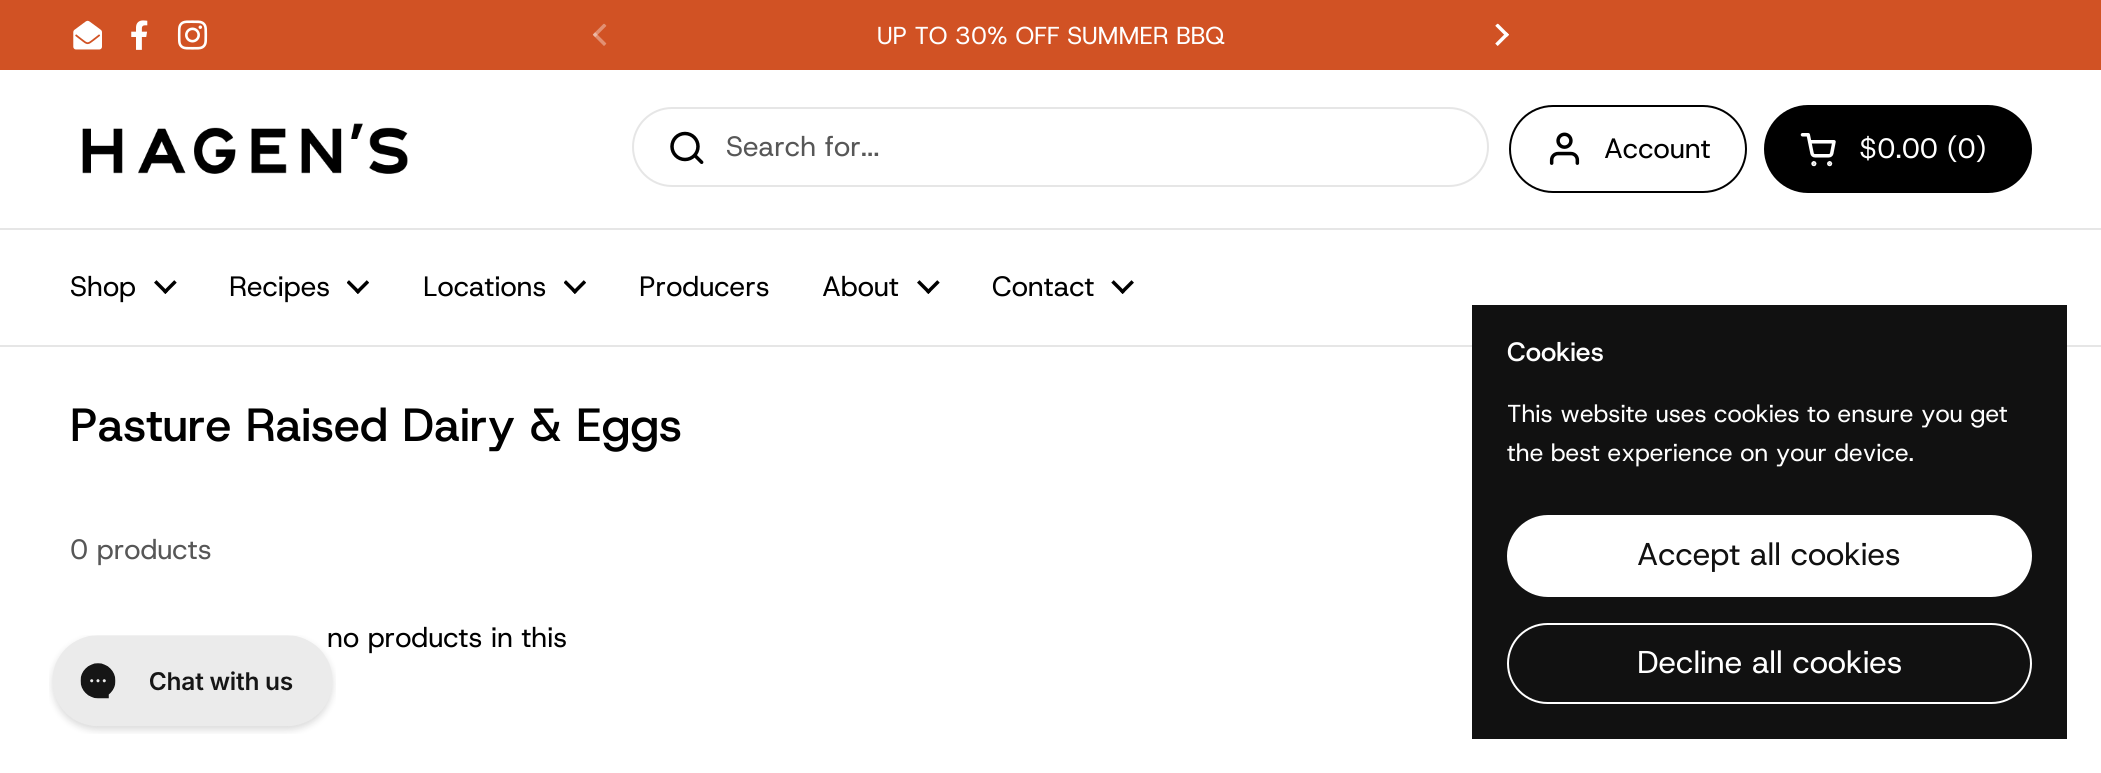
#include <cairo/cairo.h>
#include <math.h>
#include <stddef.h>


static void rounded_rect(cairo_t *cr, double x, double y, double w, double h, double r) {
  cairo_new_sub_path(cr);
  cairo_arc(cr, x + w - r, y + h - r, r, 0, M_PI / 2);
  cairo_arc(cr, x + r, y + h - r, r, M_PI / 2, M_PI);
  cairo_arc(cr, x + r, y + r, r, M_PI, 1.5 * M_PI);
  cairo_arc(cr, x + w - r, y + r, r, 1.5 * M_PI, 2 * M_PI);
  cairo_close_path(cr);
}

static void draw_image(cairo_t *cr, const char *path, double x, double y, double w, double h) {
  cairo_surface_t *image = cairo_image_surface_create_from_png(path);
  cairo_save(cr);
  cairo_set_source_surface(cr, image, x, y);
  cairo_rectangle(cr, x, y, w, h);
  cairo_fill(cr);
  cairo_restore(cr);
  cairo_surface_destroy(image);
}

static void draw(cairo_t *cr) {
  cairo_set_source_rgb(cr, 1, 1, 1);
  cairo_paint(cr);
  cairo_set_source_rgb(cr, 209 / 255.0, 82 / 255.0, 36 / 255.0);
  cairo_rectangle(cr, 0, 0, 2101, 70);
  cairo_fill(cr);
  draw_image(cr, "images/1.png", 73, 20, 29, 30);
  draw_image(cr, "images/2.png", 131, 20, 17, 30);
  draw_image(cr, "images/3.png", 177, 20, 31, 30);
  draw_image(cr, "images/4.png", 592, 23, 15, 23);
  draw_image(cr, "images/5.png", 1495, 23, 14, 23);
  cairo_set_source_rgb(cr, 230 / 255.0, 230 / 255.0, 230 / 255.0);
  cairo_rectangle(cr, 0, 228, 2101, 2);
  cairo_fill(cr);
  draw_image(cr, "images/6.png", 82, 123, 326, 51);
  rounded_rect(cr, 633, 108, 855, 78, 39);
  cairo_stroke(cr);
  draw_image(cr, "images/7.png", 670, 131, 34, 33);
  rounded_rect(cr, 1510, 106, 236, 86, 43);
  cairo_set_source_rgb(cr, 0, 0, 0);
  cairo_stroke(cr);
  draw_image(cr, "images/8.png", 1549, 132, 31, 33);
  rounded_rect(cr, 1765, 106, 266, 86, 43);
  cairo_fill_preserve(cr);
  cairo_stroke(cr);
  draw_image(cr, "images/9.png", 1800, 133, 36, 34);
  cairo_set_source_rgb(cr, 230 / 255.0, 230 / 255.0, 230 / 255.0);
  cairo_rectangle(cr, 0, 345, 2101, 2);
  cairo_fill(cr);
  draw_image(cr, "images/10.png", 154, 280, 23, 14);
  draw_image(cr, "images/11.png", 347, 280, 22, 14);
  draw_image(cr, "images/11.png", 564, 280, 22, 14);
  draw_image(cr, "images/10.png", 917, 280, 23, 14);
  draw_image(cr, "images/12.png", 1111, 280, 23, 14);
  cairo_set_source_rgb(cr, 17 / 255.0, 17 / 255.0, 17 / 255.0);
  cairo_rectangle(cr, 1472, 305, 595, 434);
  cairo_fill(cr);
  cairo_set_source_rgb(cr, 1, 1, 1);
  rounded_rect(cr, 1508, 516, 523, 80, 40);
  cairo_fill_preserve(cr);
  cairo_stroke(cr);
  rounded_rect(cr, 1508, 624, 523, 79, 39.5);
  cairo_stroke(cr);
  cairo_select_font_face(cr, "Host Grotesk", CAIRO_FONT_SLANT_NORMAL, CAIRO_FONT_WEIGHT_NORMAL);
  cairo_set_font_size(cr, 24.5);
  cairo_move_to(cr, 877, 44);
  cairo_show_text(cr, "UP TO 30% OFF SUMMER BBQ");
  cairo_set_font_size(cr, 28);
  cairo_set_source_rgb(cr, 87 / 255.0, 87 / 255.0, 87 / 255.0);
  cairo_move_to(cr, 726, 156);
  cairo_show_text(cr, "Search for...");
  cairo_set_source_rgb(cr, 0, 0, 0);
  cairo_move_to(cr, 1604, 158);
  cairo_show_text(cr, "Account");
  cairo_set_source_rgb(cr, 1, 1, 1);
  cairo_move_to(cr, 1859, 158);
  cairo_show_text(cr, "$0.00 (0)");
  cairo_set_source_rgb(cr, 0, 0, 0);
  cairo_move_to(cr, 70, 296);
  cairo_show_text(cr, "Shop");
  cairo_move_to(cr, 229, 296);
  cairo_show_text(cr, "Recipes");
  cairo_move_to(cr, 423, 296);
  cairo_show_text(cr, "Locations");
  cairo_move_to(cr, 639, 296);
  cairo_show_text(cr, "Producers");
  cairo_move_to(cr, 822, 296);
  cairo_show_text(cr, "About");
  cairo_move_to(cr, 992, 296);
  cairo_show_text(cr, "Contact");
  cairo_select_font_face(cr, "Host Grotesk Medium", CAIRO_FONT_SLANT_NORMAL, CAIRO_FONT_WEIGHT_NORMAL);
  cairo_set_font_size(cr, 46.5);
  cairo_move_to(cr, 70, 441);
  cairo_show_text(cr, "Pasture Raised Dairy & Eggs");
  cairo_select_font_face(cr, "Host Grotesk", CAIRO_FONT_SLANT_NORMAL, CAIRO_FONT_WEIGHT_NORMAL);
  cairo_set_font_size(cr, 28);
  cairo_set_source_rgb(cr, 87 / 255.0, 87 / 255.0, 87 / 255.0);
  cairo_move_to(cr, 70, 559);
  cairo_show_text(cr, "0 products");
  cairo_set_source_rgb(cr, 0, 0, 0);
  cairo_move_to(cr, 327, 647);
  cairo_show_text(cr, "no products in this");
  cairo_select_font_face(cr, "Host Grotesk Medium", CAIRO_FONT_SLANT_NORMAL, CAIRO_FONT_WEIGHT_NORMAL);
  cairo_set_font_size(cr, 26.5);
  cairo_set_source_rgb(cr, 1, 1, 1);
  cairo_move_to(cr, 1507, 361);
  cairo_show_text(cr, "Cookies");
  cairo_select_font_face(cr, "Host Grotesk", CAIRO_FONT_SLANT_NORMAL, CAIRO_FONT_WEIGHT_NORMAL);
  cairo_set_font_size(cr, 24.5);
  cairo_move_to(cr, 1507, 422);
  cairo_show_text(cr, "This website uses cookies to ensure you get");
  cairo_move_to(cr, 1507, 461);
  cairo_show_text(cr, "the best experience on your device.");
  cairo_set_font_size(cr, 31.5);
  cairo_set_source_rgb(cr, 17 / 255.0, 17 / 255.0, 17 / 255.0);
  cairo_move_to(cr, 1637, 565);
  cairo_show_text(cr, "Accept all cookies");
  cairo_set_source_rgb(cr, 1, 1, 1);
  cairo_move_to(cr, 1637, 673);
  cairo_show_text(cr, "Decline all cookies");
  draw_image(cr, "images/13.png", 49, 635, 287, 99);
}

int main(void) {
  cairo_surface_t *surface = cairo_image_surface_create(CAIRO_FORMAT_RGB24, 2101, 773);
  cairo_t *cr = cairo_create(surface);
  cairo_font_options_t *options = cairo_font_options_create();
  cairo_font_options_set_hint_metrics(options, CAIRO_HINT_METRICS_OFF);
  cairo_font_options_set_hint_style(options, CAIRO_HINT_STYLE_NONE);
  cairo_set_font_options(cr, options);
  cairo_set_miter_limit(cr, 4);
  draw(cr);
  cairo_surface_write_to_png(surface, "out.png");
  cairo_font_options_destroy(options);
  cairo_destroy(cr);
  cairo_surface_destroy(surface);
  return 0;
}
